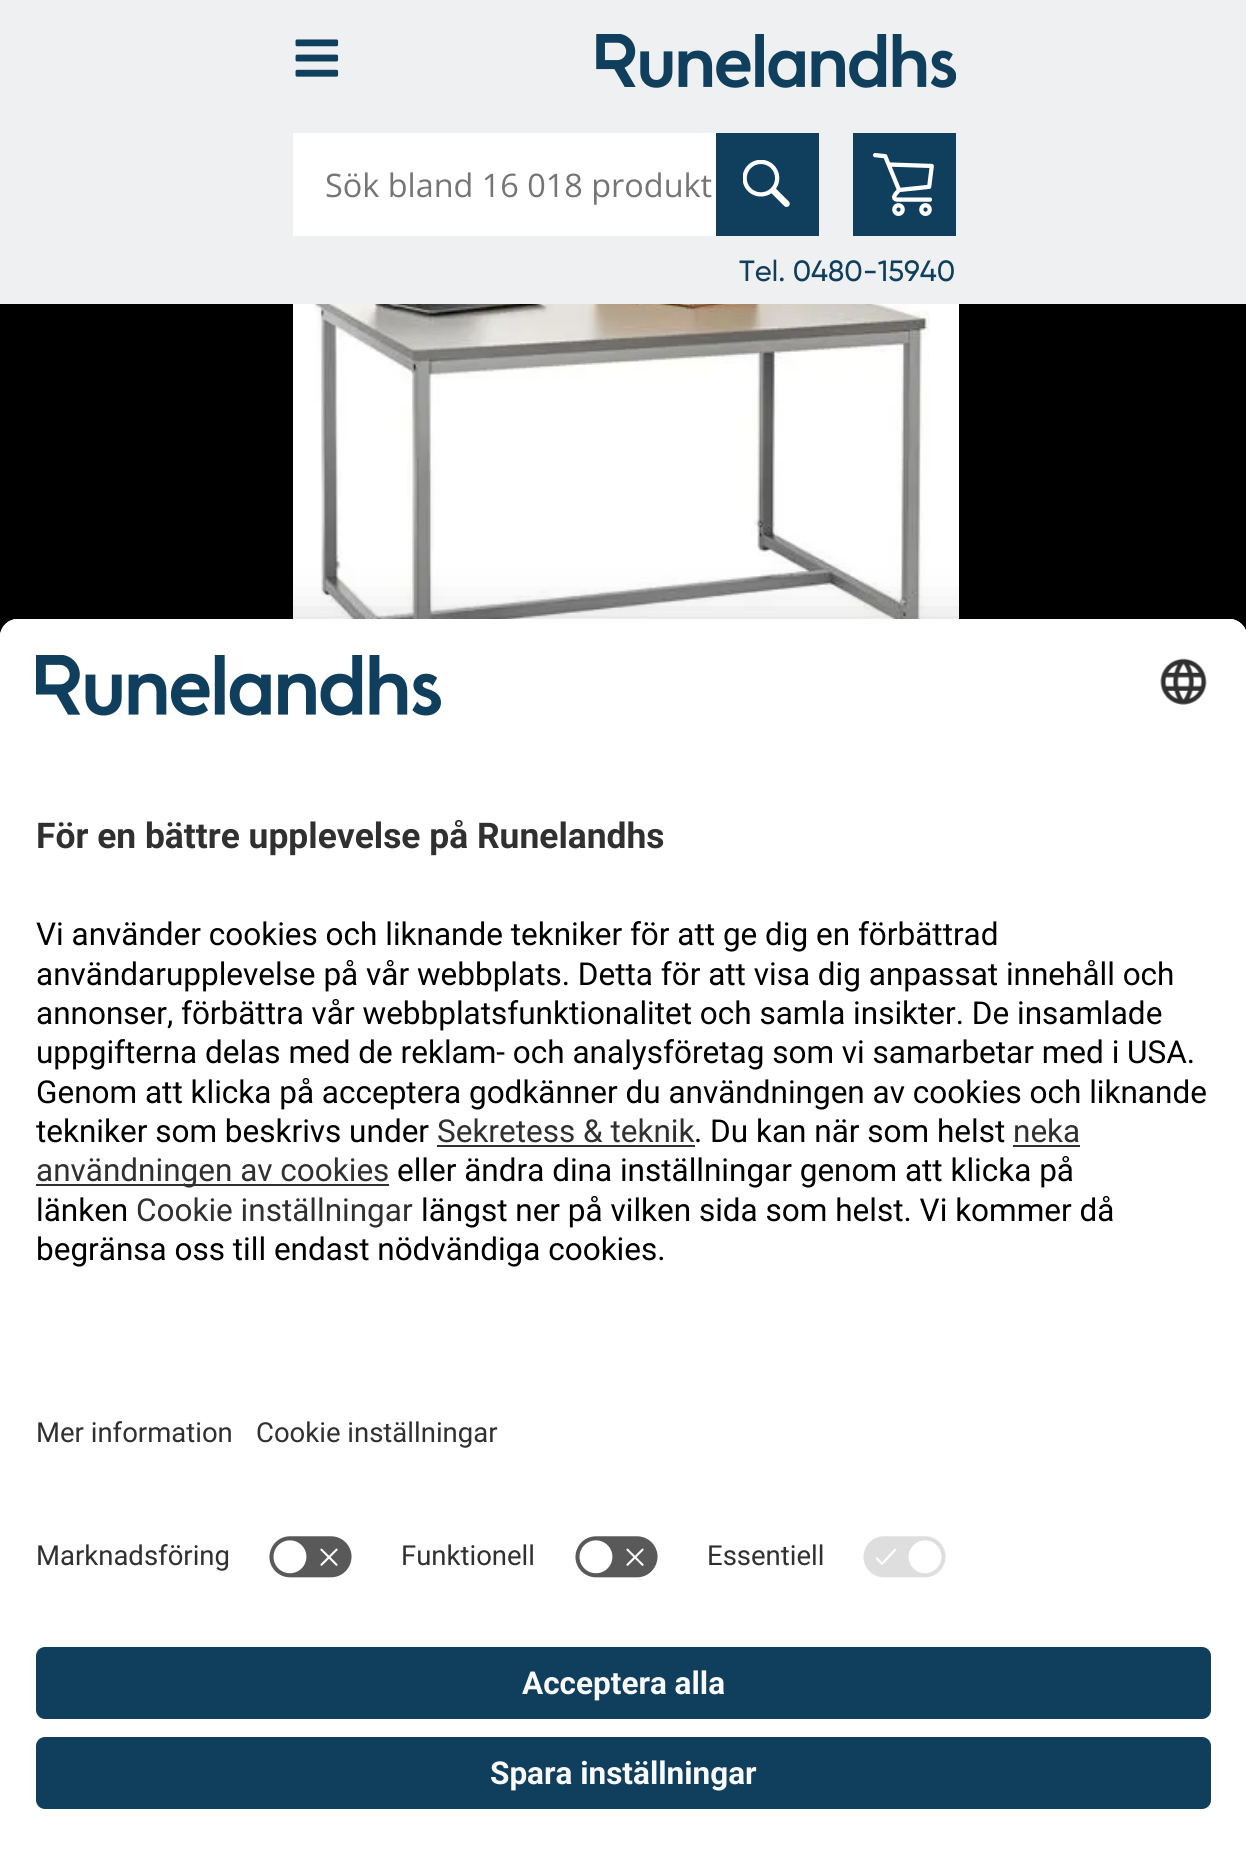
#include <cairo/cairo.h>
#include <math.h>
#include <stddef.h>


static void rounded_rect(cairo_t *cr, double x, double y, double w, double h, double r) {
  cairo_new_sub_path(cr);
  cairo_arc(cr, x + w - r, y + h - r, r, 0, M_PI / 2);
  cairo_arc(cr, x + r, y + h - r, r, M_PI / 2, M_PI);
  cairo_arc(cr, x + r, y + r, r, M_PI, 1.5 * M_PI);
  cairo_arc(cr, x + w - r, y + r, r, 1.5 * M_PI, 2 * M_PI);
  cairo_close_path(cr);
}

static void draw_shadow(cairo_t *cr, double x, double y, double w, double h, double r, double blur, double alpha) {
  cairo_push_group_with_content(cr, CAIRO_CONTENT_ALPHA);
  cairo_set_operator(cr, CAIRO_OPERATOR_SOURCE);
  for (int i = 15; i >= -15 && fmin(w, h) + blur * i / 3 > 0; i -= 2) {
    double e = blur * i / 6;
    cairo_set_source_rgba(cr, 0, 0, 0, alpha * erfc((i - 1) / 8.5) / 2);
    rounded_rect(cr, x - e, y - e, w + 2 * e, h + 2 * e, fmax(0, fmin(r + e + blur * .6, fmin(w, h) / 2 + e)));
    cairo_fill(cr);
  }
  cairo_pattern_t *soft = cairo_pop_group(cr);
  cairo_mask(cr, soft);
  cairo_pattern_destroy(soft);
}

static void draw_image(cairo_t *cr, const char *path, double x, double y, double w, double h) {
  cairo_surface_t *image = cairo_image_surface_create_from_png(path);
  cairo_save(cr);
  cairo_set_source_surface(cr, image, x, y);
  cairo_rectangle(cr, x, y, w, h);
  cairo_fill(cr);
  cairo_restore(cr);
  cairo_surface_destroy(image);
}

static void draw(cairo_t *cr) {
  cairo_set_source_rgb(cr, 0, 0, 0);
  cairo_paint(cr);
  cairo_set_source_rgb(cr, 238 / 255.0, 240 / 255.0, 242 / 255.0);
  cairo_rectangle(cr, 0, 0, 1246, 304);
  cairo_fill(cr);
  draw_image(cr, "images/1.png", 295, 39, 44, 38);
  draw_image(cr, "images/2.png", 596, 34, 360, 54);
  cairo_set_source_rgb(cr, 1, 1, 1);
  cairo_rectangle(cr, 293, 133, 423, 103);
  cairo_fill(cr);
  cairo_set_source_rgb(cr, 15 / 255.0, 63 / 255.0, 92 / 255.0);
  cairo_rectangle(cr, 716, 133, 103, 103);
  cairo_fill(cr);
  draw_image(cr, "images/3.png", 743, 160, 47, 47);
  cairo_rectangle(cr, 853, 133, 103, 103);
  cairo_fill(cr);
  draw_image(cr, "images/4.png", 873, 153, 61, 63);
  cairo_set_source_rgb(cr, 1, 1, 1);
  cairo_rectangle(cr, 293, 304, 666, 315);
  cairo_fill(cr);
  draw_image(cr, "images/5.png", 314, 304, 616, 315);
  cairo_set_source_rgb(cr, 0, 0, 0);
  draw_shadow(cr, 0, 630, 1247, 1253, 18, 29, 0.22);
  cairo_set_source_rgb(cr, 1, 1, 1);
  cairo_new_path(cr);
  cairo_move_to(cr, 18, 619);
  cairo_line_to(cr, 1229, 619);
  cairo_curve_to(cr, 1239, 619, 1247, 627, 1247, 637);
  cairo_line_to(cr, 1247, 1872);
  cairo_line_to(cr, 0, 1872);
  cairo_line_to(cr, 0, 637);
  cairo_curve_to(cr, 0, 627, 8, 619, 18, 619);
  cairo_close_path(cr);
  cairo_fill(cr);
  cairo_new_path(cr);
  cairo_move_to(cr, 18, 619);
  cairo_line_to(cr, 1229, 619);
  cairo_curve_to(cr, 1239, 619, 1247, 627, 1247, 637);
  cairo_line_to(cr, 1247, 1620);
  cairo_line_to(cr, 0, 1620);
  cairo_line_to(cr, 0, 637);
  cairo_curve_to(cr, 0, 627, 8, 619, 18, 619);
  cairo_close_path(cr);
  cairo_fill(cr);
  cairo_new_path(cr);
  cairo_move_to(cr, 18, 619);
  cairo_line_to(cr, 1229, 619);
  cairo_curve_to(cr, 1239, 619, 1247, 627, 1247, 637);
  cairo_line_to(cr, 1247, 1521);
  cairo_line_to(cr, 0, 1521);
  cairo_line_to(cr, 0, 637);
  cairo_curve_to(cr, 0, 627, 8, 619, 18, 619);
  cairo_close_path(cr);
  cairo_fill(cr);
  draw_image(cr, "images/6.png", 36, 655, 405, 61);
  draw_image(cr, "images/7.png", 1160, 658, 47, 47);
  cairo_set_source_rgb(cr, 48 / 255.0, 48 / 255.0, 48 / 255.0);
  cairo_rectangle(cr, 437, 1145, 258, 2);
  cairo_fill(cr);
  cairo_rectangle(cr, 1013, 1145, 67, 2);
  cairo_fill(cr);
  cairo_rectangle(cr, 36, 1184, 353, 2);
  cairo_fill(cr);
  draw_image(cr, "images/8.png", 269, 1536, 83, 42);
  draw_image(cr, "images/8.png", 575, 1536, 83, 42);
  draw_image(cr, "images/9.png", 863, 1536, 83, 42);
  cairo_set_source_rgb(cr, 15 / 255.0, 63 / 255.0, 92 / 255.0);
  rounded_rect(cr, 36, 1647, 1175, 72, 9);
  cairo_fill(cr);
  rounded_rect(cr, 36, 1737, 1175, 72, 9);
  cairo_fill(cr);
  cairo_select_font_face(cr, "Open Sans", CAIRO_FONT_SLANT_NORMAL, CAIRO_FONT_WEIGHT_NORMAL);
  cairo_set_font_size(cr, 32.4);
  cairo_set_source_rgb(cr, 117 / 255.0, 117 / 255.0, 117 / 255.0);
  cairo_move_to(cr, 325, 197);
  cairo_show_text(cr, "Sök bland 16 018 produkt");
  cairo_select_font_face(cr, "Gilroy Medium", CAIRO_FONT_SLANT_NORMAL, CAIRO_FONT_WEIGHT_NORMAL);
  cairo_set_font_size(cr, 29.25);
  cairo_set_source_rgb(cr, 15 / 255.0, 63 / 255.0, 92 / 255.0);
  cairo_move_to(cr, 739, 281);
  cairo_show_text(cr, "Tel. 0480-15940");
  cairo_select_font_face(cr, "Roboto", CAIRO_FONT_SLANT_NORMAL, CAIRO_FONT_WEIGHT_BOLD);
  cairo_set_font_size(cr, 35.4);
  cairo_set_source_rgb(cr, 48 / 255.0, 48 / 255.0, 48 / 255.0);
  cairo_move_to(cr, 36, 848);
  cairo_show_text(cr, "För en bättre upplevelse på Runelandhs");
  cairo_select_font_face(cr, "Roboto", CAIRO_FONT_SLANT_NORMAL, CAIRO_FONT_WEIGHT_NORMAL);
  cairo_set_font_size(cr, 31.5);
  cairo_set_source_rgb(cr, 0, 0, 0);
  cairo_move_to(cr, 36, 945);
  cairo_show_text(cr, "Vi använder cookies och liknande tekniker för att ge dig en förbättrad");
  cairo_move_to(cr, 36, 985);
  cairo_show_text(cr, "användarupplevelse på vår webbplats. Detta för att visa dig anpassat innehåll och");
  cairo_move_to(cr, 36, 1024);
  cairo_show_text(cr, "annonser, förbättra vår webbplatsfunktionalitet och samla insikter. De insamlade");
  cairo_move_to(cr, 36, 1063);
  cairo_show_text(cr, "uppgifterna delas med de reklam- och analysföretag som vi samarbetar med i USA.");
  cairo_move_to(cr, 36, 1103);
  cairo_show_text(cr, "Genom att klicka på acceptera godkänner du användningen av cookies och liknande");
  cairo_move_to(cr, 36, 1142);
  cairo_show_text(cr, "tekniker som beskrivs under");
  cairo_set_source_rgb(cr, 48 / 255.0, 48 / 255.0, 48 / 255.0);
  cairo_move_to(cr, 437, 1142);
  cairo_show_text(cr, "Sekretess & teknik");
  cairo_set_source_rgb(cr, 0, 0, 0);
  cairo_move_to(cr, 694, 1142);
  cairo_show_text(cr, ". Du kan när som helst");
  cairo_set_source_rgb(cr, 48 / 255.0, 48 / 255.0, 48 / 255.0);
  cairo_move_to(cr, 1013, 1142);
  cairo_show_text(cr, "neka");
  cairo_move_to(cr, 36, 1181);
  cairo_show_text(cr, "användningen av cookies");
  cairo_set_source_rgb(cr, 0, 0, 0);
  cairo_move_to(cr, 397, 1181);
  cairo_show_text(cr, "eller ändra dina inställningar genom att klicka på");
  cairo_move_to(cr, 36, 1221);
  cairo_show_text(cr, "länken");
  cairo_set_source_rgb(cr, 48 / 255.0, 48 / 255.0, 48 / 255.0);
  cairo_move_to(cr, 136, 1221);
  cairo_show_text(cr, "Cookie inställningar");
  cairo_set_source_rgb(cr, 0, 0, 0);
  cairo_move_to(cr, 421, 1221);
  cairo_show_text(cr, "längst ner på vilken sida som helst. Vi kommer då");
  cairo_move_to(cr, 36, 1260);
  cairo_show_text(cr, "begränsa oss till endast nödvändiga cookies.");
  cairo_set_font_size(cr, 27.5);
  cairo_set_source_rgb(cr, 48 / 255.0, 48 / 255.0, 48 / 255.0);
  cairo_move_to(cr, 36, 1442);
  cairo_show_text(cr, "Mer information");
  cairo_move_to(cr, 256, 1442);
  cairo_show_text(cr, "Cookie inställningar");
  cairo_move_to(cr, 36, 1565);
  cairo_show_text(cr, "Marknadsföring");
  cairo_move_to(cr, 401, 1565);
  cairo_show_text(cr, "Funktionell");
  cairo_move_to(cr, 707, 1565);
  cairo_show_text(cr, "Essentiell");
  cairo_select_font_face(cr, "Roboto", CAIRO_FONT_SLANT_NORMAL, CAIRO_FONT_WEIGHT_BOLD);
  cairo_set_font_size(cr, 31.5);
  cairo_set_source_rgb(cr, 250 / 255.0, 250 / 255.0, 250 / 255.0);
  cairo_move_to(cr, 522, 1694);
  cairo_show_text(cr, "Acceptera alla");
  cairo_move_to(cr, 490, 1784);
  cairo_show_text(cr, "Spara inställningar");
}

int main(void) {
  cairo_surface_t *surface = cairo_image_surface_create(CAIRO_FORMAT_RGB24, 1246, 1872);
  cairo_t *cr = cairo_create(surface);
  cairo_font_options_t *options = cairo_font_options_create();
  cairo_font_options_set_hint_metrics(options, CAIRO_HINT_METRICS_OFF);
  cairo_font_options_set_hint_style(options, CAIRO_HINT_STYLE_NONE);
  cairo_set_font_options(cr, options);
  cairo_set_miter_limit(cr, 4);
  draw(cr);
  cairo_surface_write_to_png(surface, "out.png");
  cairo_font_options_destroy(options);
  cairo_destroy(cr);
  cairo_surface_destroy(surface);
  return 0;
}
